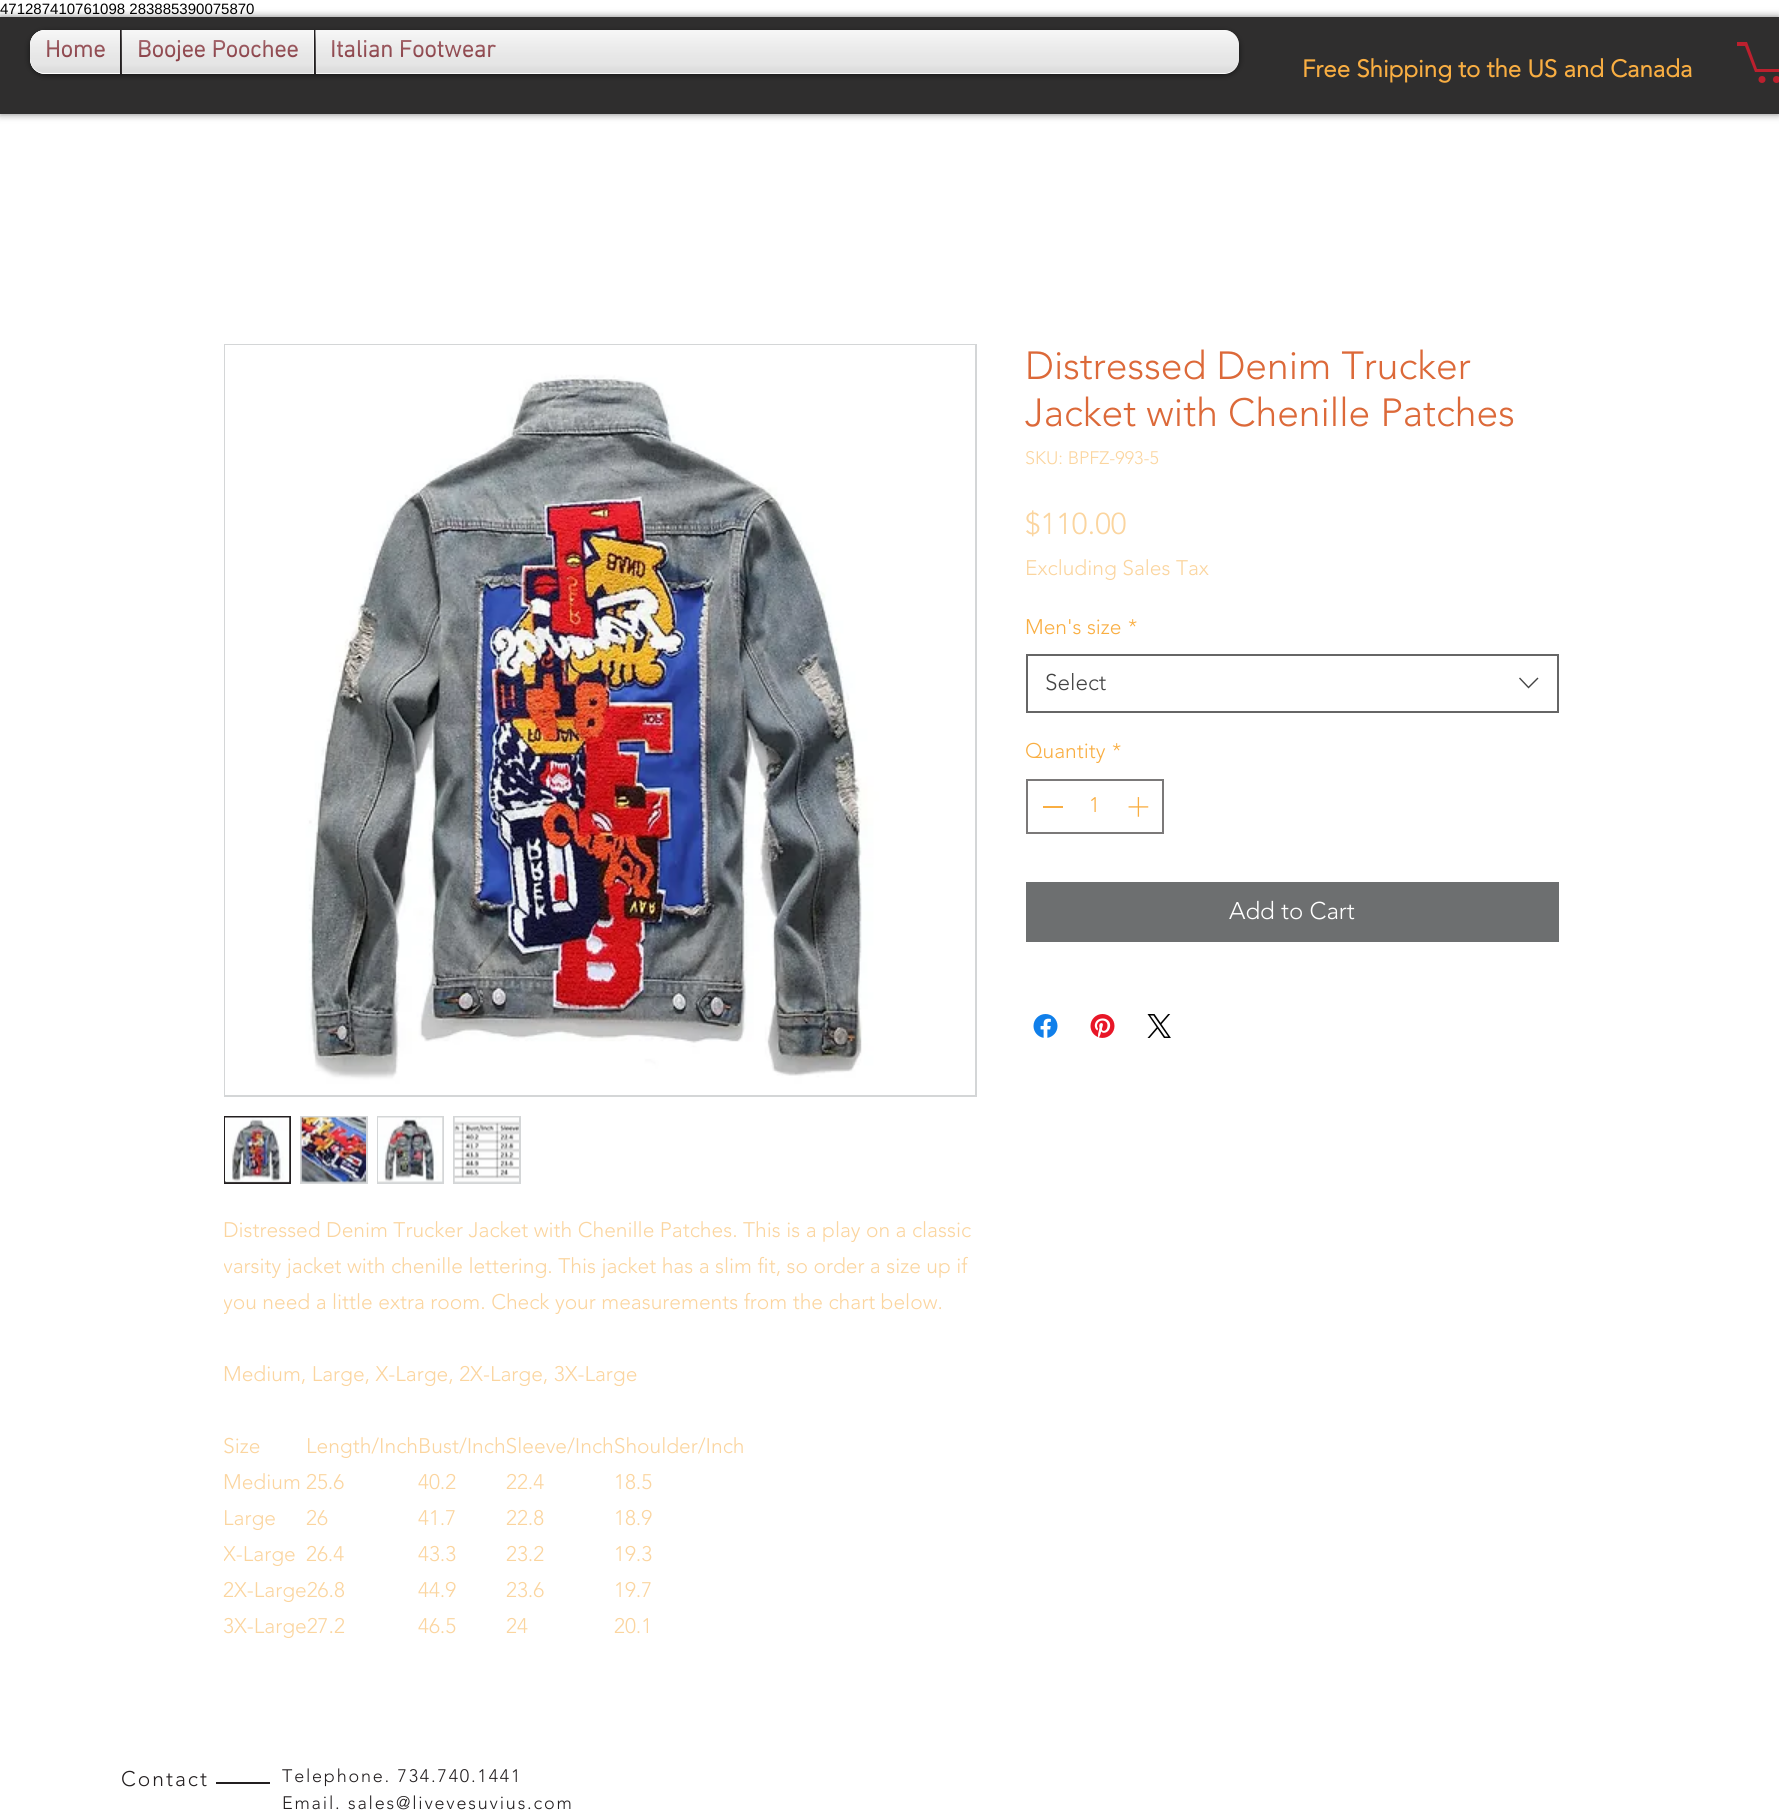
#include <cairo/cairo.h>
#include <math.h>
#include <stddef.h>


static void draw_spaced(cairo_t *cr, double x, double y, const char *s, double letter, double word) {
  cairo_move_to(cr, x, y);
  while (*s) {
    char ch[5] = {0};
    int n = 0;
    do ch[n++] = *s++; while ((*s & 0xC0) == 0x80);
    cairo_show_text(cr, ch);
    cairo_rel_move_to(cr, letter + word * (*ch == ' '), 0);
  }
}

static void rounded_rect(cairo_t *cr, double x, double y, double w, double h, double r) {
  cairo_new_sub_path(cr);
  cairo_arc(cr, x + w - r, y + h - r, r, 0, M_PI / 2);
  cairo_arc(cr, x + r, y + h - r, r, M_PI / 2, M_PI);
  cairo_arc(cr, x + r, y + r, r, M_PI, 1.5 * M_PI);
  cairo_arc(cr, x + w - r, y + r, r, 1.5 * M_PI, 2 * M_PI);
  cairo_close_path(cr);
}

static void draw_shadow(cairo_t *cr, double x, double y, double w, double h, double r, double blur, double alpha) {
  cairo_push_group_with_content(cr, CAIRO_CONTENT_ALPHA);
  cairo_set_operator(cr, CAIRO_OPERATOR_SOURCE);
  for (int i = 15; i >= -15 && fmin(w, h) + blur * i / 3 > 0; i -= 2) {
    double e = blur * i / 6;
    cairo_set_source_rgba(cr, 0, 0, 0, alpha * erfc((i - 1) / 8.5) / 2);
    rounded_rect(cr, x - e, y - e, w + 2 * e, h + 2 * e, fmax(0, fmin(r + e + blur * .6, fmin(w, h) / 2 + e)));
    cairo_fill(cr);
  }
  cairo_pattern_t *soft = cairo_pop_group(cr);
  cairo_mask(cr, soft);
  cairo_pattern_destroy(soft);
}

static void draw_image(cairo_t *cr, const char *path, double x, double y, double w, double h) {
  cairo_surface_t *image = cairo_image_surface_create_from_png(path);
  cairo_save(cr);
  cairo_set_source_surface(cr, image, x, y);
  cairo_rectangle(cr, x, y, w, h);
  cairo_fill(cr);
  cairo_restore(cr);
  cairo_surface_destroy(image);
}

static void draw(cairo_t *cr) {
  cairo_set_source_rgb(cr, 1, 1, 1);
  cairo_paint(cr);
  cairo_set_source_rgb(cr, 0, 0, 0);
  draw_shadow(cr, 0, 17, 1779, 97, 0, 4, 0.5);
  cairo_set_source_rgb(cr, 47 / 255.0, 46 / 255.0, 46 / 255.0);
  cairo_rectangle(cr, 0, 17, 1779, 97);
  cairo_fill(cr);
  cairo_set_source_rgb(cr, 0, 0, 0);
  draw_shadow(cr, 30, 32, 1209, 43, 15, 3, 0.6);
  cairo_set_source_rgb(cr, 1, 1, 1);
  rounded_rect(cr, 30, 30, 1209, 44, 15);
  cairo_fill(cr);
  draw_image(cr, "images/1.png", 30, 30, 1209, 33);
  draw_image(cr, "images/2.png", 30, 30, 1209, 44);
  cairo_new_path(cr);
  cairo_move_to(cr, 45, 30);
  cairo_line_to(cr, 120, 30);
  cairo_line_to(cr, 120, 74);
  cairo_line_to(cr, 45, 74);
  cairo_curve_to(cr, 36.5, 74, 30, 67.5, 30, 59);
  cairo_line_to(cr, 30, 45);
  cairo_curve_to(cr, 30, 36.5, 36.5, 30, 45, 30);
  cairo_close_path(cr);
  cairo_fill(cr);
  cairo_rectangle(cr, 122, 30, 192, 44);
  cairo_fill(cr);
  cairo_set_source_rgb(cr, 35 / 255.0, 31 / 255.0, 32 / 255.0);
  cairo_rectangle(cr, 120, 30, 2, 44);
  cairo_fill(cr);
  cairo_set_source_rgb(cr, 1, 1, 1);
  cairo_rectangle(cr, 316, 30, 194, 44);
  cairo_fill(cr);
  cairo_set_source_rgb(cr, 35 / 255.0, 31 / 255.0, 32 / 255.0);
  cairo_rectangle(cr, 314, 30, 2, 44);
  cairo_fill(cr);
  cairo_set_source_rgb(cr, 188 / 255.0, 32 / 255.0, 46 / 255.0);
  cairo_new_path(cr);
  cairo_move_to(cr, 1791, 53);
  cairo_line_to(cr, 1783, 72);
  cairo_line_to(cr, 1755, 72);
  cairo_line_to(cr, 1745, 46);
  cairo_line_to(cr, 1737, 46);
  cairo_line_to(cr, 1737, 42);
  cairo_line_to(cr, 1747, 42);
  cairo_line_to(cr, 1757, 69);
  cairo_line_to(cr, 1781, 69);
  cairo_line_to(cr, 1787, 53);
  cairo_fill(cr);
  cairo_arc(cr, 1776.5, 79.5, 3.5, 0, 2 * M_PI);
  cairo_fill(cr);
  cairo_arc(cr, 1762, 79.5, 3.5, 0, 2 * M_PI);
  cairo_fill(cr);
  cairo_rectangle(cr, 1027, 655, 531, 57);
  cairo_set_source_rgb(cr, 102 / 255.0, 102 / 255.0, 102 / 255.0);
  cairo_stroke(cr);
  cairo_set_source_rgb(cr, 68 / 255.0, 68 / 255.0, 68 / 255.0);
  cairo_set_fill_rule(cr, CAIRO_FILL_RULE_EVEN_ODD);
  cairo_new_path(cr);
  cairo_move_to(cr, 1537.5, 677.5);
  cairo_line_to(cr, 1538.5, 678.5);
  cairo_line_to(cr, 1528.5, 688.5);
  cairo_line_to(cr, 1519, 678.5);
  cairo_line_to(cr, 1520, 677.5);
  cairo_line_to(cr, 1528.5, 686.5);
  cairo_close_path(cr);
  cairo_fill(cr);
  cairo_rectangle(cr, 1027, 780, 136, 53);
  cairo_set_source_rgb(cr, 123 / 255.0, 121 / 255.0, 121 / 255.0);
  cairo_stroke(cr);
  cairo_set_source_rgb(cr, 249 / 255.0, 174 / 255.0, 66 / 255.0);
  cairo_rectangle(cr, 1043, 806, 20, 2);
  cairo_fill(cr);
  draw_image(cr, "images/9.png", 1128, 797, 21, 20);
  cairo_set_source_rgb(cr, 109 / 255.0, 111 / 255.0, 112 / 255.0);
  cairo_rectangle(cr, 1026, 882, 533, 60);
  cairo_fill(cr);
  draw_image(cr, "images/10.png", 1033, 1014, 25, 24);
  draw_image(cr, "images/11.png", 1090, 1014, 25, 24);
  draw_image(cr, "images/12.png", 1147, 1014, 24, 24);
  cairo_rectangle(cr, 225, 345, 751, 751);
  cairo_set_source_rgb(cr, 212 / 255.0, 214 / 255.0, 215 / 255.0);
  cairo_stroke(cr);
  draw_image(cr, "images/13.png", 225, 345, 750, 750);
  cairo_rectangle(cr, 226, 1181, 63, 1);
  cairo_fill(cr);
  cairo_rectangle(cr, 225, 1117, 65, 66);
  cairo_set_source_rgb(cr, 35 / 255.0, 31 / 255.0, 32 / 255.0);
  cairo_stroke(cr);
  draw_image(cr, "images/14.png", 225, 1117, 65, 66);
  cairo_set_source_rgb(cr, 212 / 255.0, 214 / 255.0, 215 / 255.0);
  cairo_rectangle(cr, 300, 1116, 68, 68);
  cairo_fill(cr);
  draw_image(cr, "images/15.png", 301, 1117, 65, 66);
  cairo_rectangle(cr, 377, 1116, 67, 68);
  cairo_fill(cr);
  draw_image(cr, "images/16.png", 378, 1117, 65, 66);
  cairo_rectangle(cr, 453, 1116, 68, 68);
  cairo_fill(cr);
  draw_image(cr, "images/17.png", 454, 1117, 65, 66);
  cairo_set_source_rgb(cr, 35 / 255.0, 31 / 255.0, 32 / 255.0);
  cairo_rectangle(cr, 216, 1782, 54, 2);
  cairo_fill(cr);
  cairo_select_font_face(cr, "Liberation Sans", CAIRO_FONT_SLANT_NORMAL, CAIRO_FONT_WEIGHT_NORMAL);
  cairo_set_font_size(cr, 15);
  cairo_set_source_rgb(cr, 0, 0, 0);
  cairo_move_to(cr, 0, 14);
  cairo_show_text(cr, "471287410761098 283885390075870");
  cairo_select_font_face(cr, "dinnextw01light", CAIRO_FONT_SLANT_NORMAL, CAIRO_FONT_WEIGHT_BOLD);
  cairo_set_font_size(cr, 24);
  cairo_set_source_rgb(cr, 125 / 255.0, 21 / 255.0, 31 / 255.0);
  cairo_move_to(cr, 45, 57);
  cairo_show_text(cr, "Home");
  draw_image(cr, "images/3.png", 31, 30, 73, 28);
  draw_image(cr, "images/4.png", 30, 30, 90, 43);
  cairo_move_to(cr, 137, 57);
  cairo_show_text(cr, "Boojee Poochee");
  draw_image(cr, "images/5.png", 121, 30, 176, 44);
  draw_image(cr, "images/6.png", 122, 30, 192, 44);
  cairo_move_to(cr, 330, 57);
  cairo_show_text(cr, "Italian Footwear");
  draw_image(cr, "images/7.png", 315, 30, 180, 44);
  draw_image(cr, "images/8.png", 315, 30, 195, 44);
  cairo_select_font_face(cr, "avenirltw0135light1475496", CAIRO_FONT_SLANT_NORMAL, CAIRO_FONT_WEIGHT_BOLD);
  cairo_set_source_rgb(cr, 249 / 255.0, 174 / 255.0, 66 / 255.0);
  cairo_move_to(cr, 1302, 77);
  cairo_show_text(cr, "Free Shipping to the US and Canada");
  cairo_select_font_face(cr, "avenirltw0135light1475496 Light", CAIRO_FONT_SLANT_NORMAL, CAIRO_FONT_WEIGHT_NORMAL);
  cairo_set_font_size(cr, 39);
  cairo_set_source_rgb(cr, 220 / 255.0, 105 / 255.0, 57 / 255.0);
  cairo_move_to(cr, 1025, 379);
  cairo_show_text(cr, "Distressed Denim Trucker");
  cairo_move_to(cr, 1025, 426);
  cairo_show_text(cr, "Jacket with Chenille Patches");
  cairo_set_font_size(cr, 18);
  cairo_set_source_rgb(cr, 251 / 255.0, 213 / 255.0, 159 / 255.0);
  cairo_move_to(cr, 1025, 464);
  cairo_show_text(cr, "SKU: BPFZ-993-5");
  cairo_set_font_size(cr, 30);
  cairo_move_to(cr, 1025, 534);
  cairo_show_text(cr, "$110.00");
  cairo_set_font_size(cr, 21);
  cairo_move_to(cr, 1025, 575);
  cairo_show_text(cr, "Excluding Sales Tax");
  cairo_set_source_rgb(cr, 249 / 255.0, 174 / 255.0, 66 / 255.0);
  cairo_move_to(cr, 1025, 634);
  cairo_show_text(cr, "Men's size");
  cairo_move_to(cr, 1128, 634);
  cairo_show_text(cr, "*");
  cairo_set_font_size(cr, 22.5);
  cairo_set_source_rgb(cr, 68 / 255.0, 68 / 255.0, 68 / 255.0);
  cairo_move_to(cr, 1045, 690);
  cairo_show_text(cr, "Select");
  cairo_set_font_size(cr, 21);
  cairo_set_source_rgb(cr, 249 / 255.0, 174 / 255.0, 66 / 255.0);
  cairo_move_to(cr, 1025, 758);
  cairo_show_text(cr, "Quantity");
  cairo_move_to(cr, 1112, 758);
  cairo_show_text(cr, "*");
  cairo_move_to(cr, 1089, 812);
  cairo_show_text(cr, "1");
  cairo_set_font_size(cr, 24);
  cairo_set_source_rgb(cr, 1, 1, 1);
  cairo_move_to(cr, 1229, 919);
  cairo_show_text(cr, "Add to Cart");
  cairo_set_font_size(cr, 21);
  cairo_set_source_rgb(cr, 251 / 255.0, 213 / 255.0, 159 / 255.0);
  cairo_move_to(cr, 223, 1237);
  cairo_show_text(cr, "Distressed Denim Trucker Jacket with Chenille Patches. This is a play on a classic");
  cairo_save(cr);
  cairo_set_fill_rule(cr, CAIRO_FILL_RULE_WINDING);
  cairo_rectangle(cr, 224, 1214, 750, 432);
  cairo_clip(cr);
  cairo_move_to(cr, 223, 1273);
  cairo_show_text(cr, "varsity jacket with chenille lettering. This jacket has a slim fit, so order a size up if");
  cairo_move_to(cr, 223, 1309);
  cairo_show_text(cr, "you need a little extra room. Check your measurements from the chart below.");
  cairo_restore(cr);
  cairo_move_to(cr, 223, 1381);
  cairo_show_text(cr, "Medium, Large, X-Large, 2X-Large, 3X-Large");
  cairo_move_to(cr, 223, 1453);
  cairo_show_text(cr, "Size");
  cairo_move_to(cr, 306, 1453);
  cairo_show_text(cr, "Length/InchBust/InchSleeve/InchShoulder/Inch");
  cairo_move_to(cr, 223, 1489);
  cairo_show_text(cr, "Medium");
  cairo_move_to(cr, 306, 1489);
  cairo_show_text(cr, "25.6");
  cairo_move_to(cr, 418, 1489);
  cairo_show_text(cr, "40.2");
  cairo_move_to(cr, 506, 1489);
  cairo_show_text(cr, "22.4");
  cairo_move_to(cr, 614, 1489);
  cairo_show_text(cr, "18.5");
  cairo_move_to(cr, 223, 1525);
  cairo_show_text(cr, "Large");
  cairo_move_to(cr, 306, 1525);
  cairo_show_text(cr, "26");
  cairo_move_to(cr, 418, 1525);
  cairo_show_text(cr, "41.7");
  cairo_move_to(cr, 506, 1525);
  cairo_show_text(cr, "22.8");
  cairo_move_to(cr, 614, 1525);
  cairo_show_text(cr, "18.9");
  cairo_save(cr);
  cairo_set_fill_rule(cr, CAIRO_FILL_RULE_WINDING);
  cairo_rectangle(cr, 224, 1214, 750, 432);
  cairo_clip(cr);
  cairo_move_to(cr, 223, 1561);
  cairo_show_text(cr, "X-Large");
  cairo_restore(cr);
  cairo_move_to(cr, 306, 1561);
  cairo_show_text(cr, "26.4");
  cairo_move_to(cr, 418, 1561);
  cairo_show_text(cr, "43.3");
  cairo_move_to(cr, 506, 1561);
  cairo_show_text(cr, "23.2");
  cairo_move_to(cr, 614, 1561);
  cairo_show_text(cr, "19.3");
  cairo_move_to(cr, 223, 1597);
  cairo_show_text(cr, "2X-Large26.8");
  cairo_move_to(cr, 418, 1597);
  cairo_show_text(cr, "44.9");
  cairo_move_to(cr, 506, 1597);
  cairo_show_text(cr, "23.6");
  cairo_move_to(cr, 614, 1597);
  cairo_show_text(cr, "19.7");
  cairo_move_to(cr, 223, 1633);
  cairo_show_text(cr, "3X-Large27.2");
  cairo_move_to(cr, 418, 1633);
  cairo_show_text(cr, "46.5");
  cairo_move_to(cr, 506, 1633);
  cairo_show_text(cr, "24");
  cairo_move_to(cr, 614, 1633);
  cairo_show_text(cr, "20.1");
  cairo_set_source_rgb(cr, 35 / 255.0, 31 / 255.0, 32 / 255.0);
  draw_spaced(cr, 121, 1786, "Contact", 2, 0);
  cairo_set_font_size(cr, 18);
  draw_spaced(cr, 282, 1782, "Telephone. 734.740.1441", 1.8, 0);
  draw_spaced(cr, 282, 1809, "Email. sales@livevesuvius.com", 1.8, 0);
}

int main(void) {
  cairo_surface_t *surface = cairo_image_surface_create(CAIRO_FORMAT_RGB24, 1779, 1812);
  cairo_t *cr = cairo_create(surface);
  cairo_font_options_t *options = cairo_font_options_create();
  cairo_font_options_set_hint_metrics(options, CAIRO_HINT_METRICS_OFF);
  cairo_font_options_set_hint_style(options, CAIRO_HINT_STYLE_NONE);
  cairo_set_font_options(cr, options);
  cairo_set_miter_limit(cr, 4);
  draw(cr);
  cairo_surface_write_to_png(surface, "out.png");
  cairo_font_options_destroy(options);
  cairo_destroy(cr);
  cairo_surface_destroy(surface);
  return 0;
}
